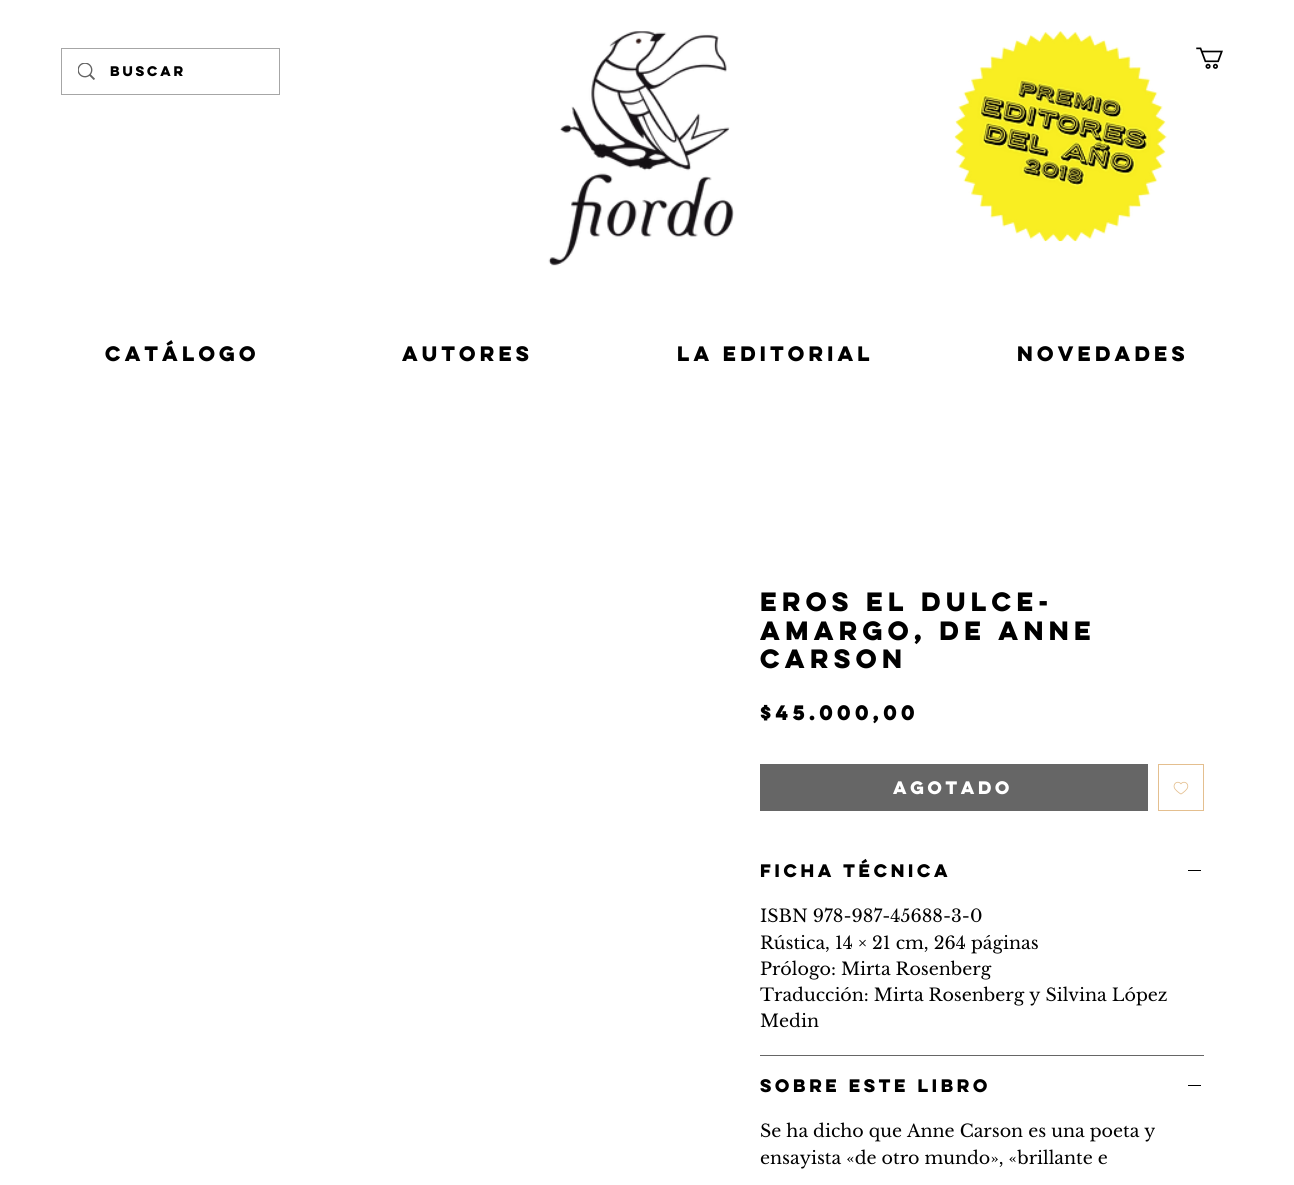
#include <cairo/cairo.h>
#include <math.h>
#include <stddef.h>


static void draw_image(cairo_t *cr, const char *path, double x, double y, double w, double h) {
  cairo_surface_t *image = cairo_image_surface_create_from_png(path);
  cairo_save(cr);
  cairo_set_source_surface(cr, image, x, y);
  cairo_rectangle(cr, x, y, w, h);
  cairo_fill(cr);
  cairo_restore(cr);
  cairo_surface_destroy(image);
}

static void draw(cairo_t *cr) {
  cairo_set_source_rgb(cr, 1, 1, 1);
  cairo_paint(cr);
  draw_image(cr, "images/1.png", 548, 31, 186, 235);
  draw_image(cr, "images/2.png", 954, 31, 213, 211);
  draw_image(cr, "images/3.png", 1196, 47, 27, 22);
  cairo_rectangle(cr, 61.5, 48.5, 218, 46);
  cairo_set_source_rgb(cr, 166 / 255.0, 166 / 255.0, 166 / 255.0);
  cairo_set_line_width(cr, 1);
  cairo_stroke(cr);
  draw_image(cr, "images/4.png", 78, 63, 17, 17);
  cairo_set_source_rgb(cr, 102 / 255.0, 102 / 255.0, 102 / 255.0);
  cairo_rectangle(cr, 760, 764, 388, 47);
  cairo_fill(cr);
  cairo_rectangle(cr, 1158.5, 764.5, 45, 46);
  cairo_set_source_rgb(cr, 228 / 255.0, 191 / 255.0, 143 / 255.0);
  cairo_stroke(cr);
  draw_image(cr, "images/5.png", 1173, 781, 16, 14);
  cairo_set_source_rgb(cr, 102 / 255.0, 102 / 255.0, 102 / 255.0);
  cairo_rectangle(cr, 760, 1055, 444, 1);
  cairo_fill(cr);
  cairo_set_source_rgb(cr, 0, 0, 0);
  cairo_rectangle(cr, 1188, 870, 13, 1);
  cairo_fill(cr);
  cairo_rectangle(cr, 1188, 1085, 13, 1);
  cairo_fill(cr);
  cairo_select_font_face(cr, "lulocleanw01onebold", CAIRO_FONT_SLANT_NORMAL, CAIRO_FONT_WEIGHT_BOLD);
  cairo_set_font_size(cr, 12.5);
  cairo_move_to(cr, 110, 76);
  cairo_show_text(cr, "Buscar");
  cairo_set_font_size(cr, 18.75);
  cairo_move_to(cr, 105, 361);
  cairo_show_text(cr, "CATÁLOGO");
  cairo_move_to(cr, 402, 361);
  cairo_show_text(cr, "AUTORES");
  cairo_move_to(cr, 677, 361);
  cairo_show_text(cr, "LA EDITORIAL");
  cairo_move_to(cr, 1017, 361);
  cairo_show_text(cr, "NOVEDADES");
  cairo_set_font_size(cr, 23.75);
  cairo_move_to(cr, 760, 611);
  cairo_show_text(cr, "Eros el dulce-");
  cairo_move_to(cr, 760, 640);
  cairo_show_text(cr, "amargo, de Anne");
  cairo_move_to(cr, 760, 668);
  cairo_show_text(cr, "Carson");
  cairo_set_font_size(cr, 18.75);
  cairo_move_to(cr, 760, 720);
  cairo_show_text(cr, "$45.000,00");
  cairo_set_font_size(cr, 16.25);
  cairo_set_source_rgb(cr, 1, 1, 1);
  cairo_move_to(cr, 893, 794);
  cairo_show_text(cr, "Agotado");
  cairo_set_source_rgb(cr, 0, 0, 0);
  cairo_move_to(cr, 760, 877);
  cairo_show_text(cr, "Ficha técnica");
  cairo_select_font_face(cr, "Libre Baskerville", CAIRO_FONT_SLANT_NORMAL, CAIRO_FONT_WEIGHT_NORMAL);
  cairo_set_font_size(cr, 17.5);
  cairo_move_to(cr, 760, 922);
  cairo_show_text(cr, "ISBN 978-987-45688-3-0");
  cairo_move_to(cr, 760, 949);
  cairo_show_text(cr, "Rústica, 14 × 21 cm, 264 páginas");
  cairo_move_to(cr, 760, 975);
  cairo_show_text(cr, "Prólogo: Mirta Rosenberg");
  cairo_move_to(cr, 760, 1001);
  cairo_show_text(cr, "Traducción: Mirta Rosenberg y Silvina López");
  cairo_move_to(cr, 760, 1027);
  cairo_show_text(cr, "Medin");
  cairo_select_font_face(cr, "lulocleanw01onebold", CAIRO_FONT_SLANT_NORMAL, CAIRO_FONT_WEIGHT_BOLD);
  cairo_set_font_size(cr, 16.25);
  cairo_move_to(cr, 760, 1092);
  cairo_show_text(cr, "Sobre este libro");
  cairo_select_font_face(cr, "Libre Baskerville", CAIRO_FONT_SLANT_NORMAL, CAIRO_FONT_WEIGHT_NORMAL);
  cairo_set_font_size(cr, 17.5);
  cairo_move_to(cr, 760, 1137);
  cairo_show_text(cr, "Se ha dicho que Anne Carson es una poeta y");
  cairo_move_to(cr, 760, 1164);
  cairo_show_text(cr, "ensayista «de otro mundo», «brillante e");
}

int main(void) {
  cairo_surface_t *surface = cairo_image_surface_create(CAIRO_FORMAT_RGB24, 1294, 1185);
  cairo_t *cr = cairo_create(surface);
  cairo_font_options_t *options = cairo_font_options_create();
  cairo_font_options_set_hint_metrics(options, CAIRO_HINT_METRICS_OFF);
  cairo_font_options_set_hint_style(options, CAIRO_HINT_STYLE_NONE);
  cairo_set_font_options(cr, options);
  cairo_set_miter_limit(cr, 4);
  draw(cr);
  cairo_surface_write_to_png(surface, "out.png");
  cairo_font_options_destroy(options);
  cairo_destroy(cr);
  cairo_surface_destroy(surface);
  return 0;
}
